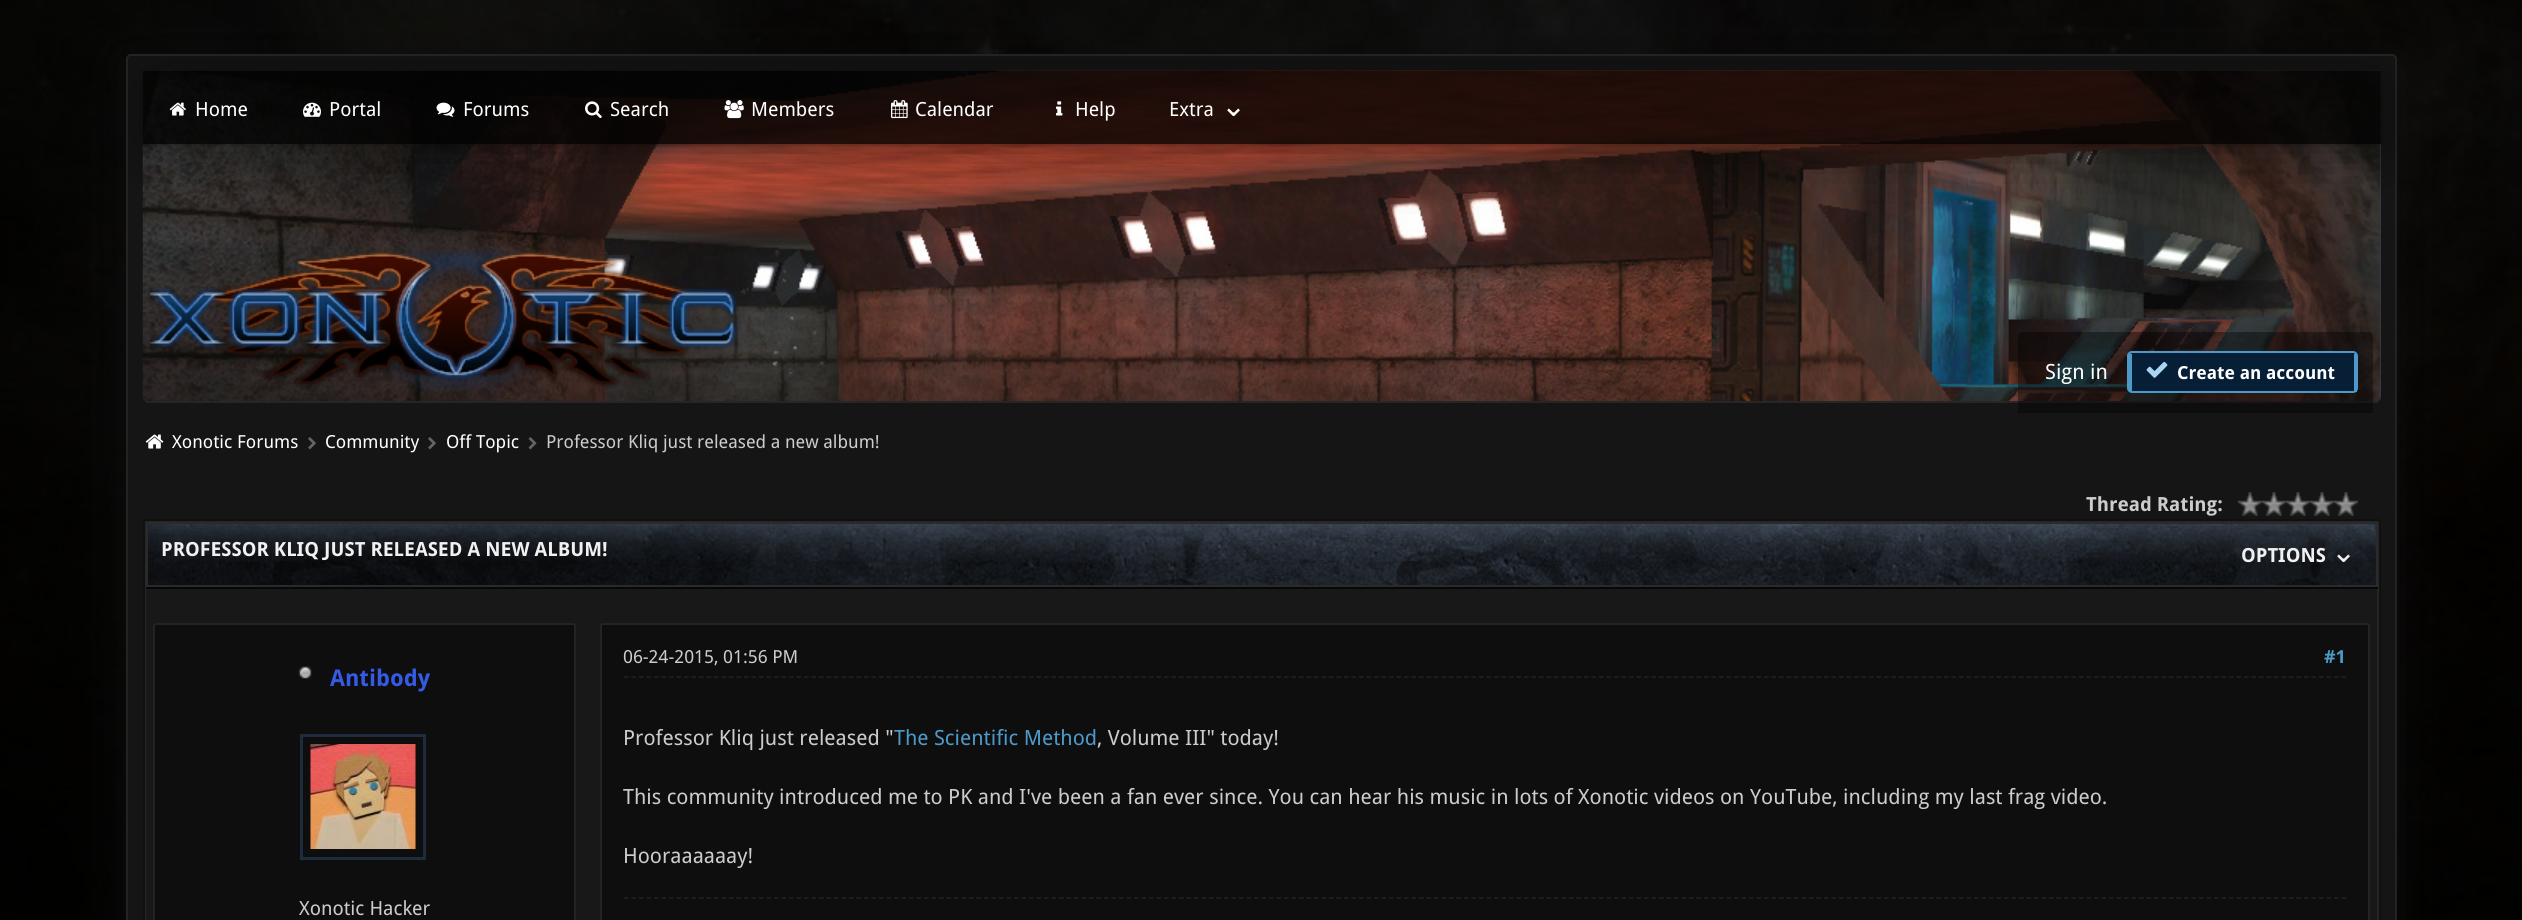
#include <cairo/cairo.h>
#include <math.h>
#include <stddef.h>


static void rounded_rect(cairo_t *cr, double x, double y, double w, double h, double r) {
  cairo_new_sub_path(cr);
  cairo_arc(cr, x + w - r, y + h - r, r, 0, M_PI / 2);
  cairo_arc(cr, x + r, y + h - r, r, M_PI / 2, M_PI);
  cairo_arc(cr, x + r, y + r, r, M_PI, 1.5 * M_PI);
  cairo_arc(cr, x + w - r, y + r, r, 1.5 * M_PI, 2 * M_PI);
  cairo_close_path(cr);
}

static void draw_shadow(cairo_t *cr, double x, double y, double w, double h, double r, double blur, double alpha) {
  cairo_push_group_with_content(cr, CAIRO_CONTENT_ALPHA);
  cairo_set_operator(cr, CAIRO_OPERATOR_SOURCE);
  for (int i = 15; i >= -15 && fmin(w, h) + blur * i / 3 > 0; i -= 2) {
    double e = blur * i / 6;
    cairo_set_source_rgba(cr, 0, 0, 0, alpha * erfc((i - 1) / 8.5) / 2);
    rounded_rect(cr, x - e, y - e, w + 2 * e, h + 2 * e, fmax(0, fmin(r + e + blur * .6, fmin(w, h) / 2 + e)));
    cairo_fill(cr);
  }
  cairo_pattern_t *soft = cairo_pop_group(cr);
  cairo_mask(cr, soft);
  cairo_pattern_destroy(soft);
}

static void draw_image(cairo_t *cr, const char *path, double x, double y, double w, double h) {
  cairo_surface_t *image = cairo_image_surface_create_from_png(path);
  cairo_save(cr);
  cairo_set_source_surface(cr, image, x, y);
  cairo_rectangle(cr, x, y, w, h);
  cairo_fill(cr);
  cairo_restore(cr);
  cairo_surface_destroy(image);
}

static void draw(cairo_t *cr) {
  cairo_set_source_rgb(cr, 1, 1, 1);
  cairo_paint(cr);
  draw_image(cr, "images/1.png", 0, 0, 2522, 920);
  cairo_set_source_rgb(cr, 13 / 255.0, 13 / 255.0, 13 / 255.0);
  draw_shadow(cr, 126, 62, 2271, 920, 5, 19, 1);
  cairo_set_source_rgb(cr, 21 / 255.0, 21 / 255.0, 21 / 255.0);
  rounded_rect(cr, 128, 56, 2268, 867, 3);
  cairo_fill(cr);
  rounded_rect(cr, 127, 55, 2269, 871, 4);
  cairo_set_source_rgb(cr, 35 / 255.0, 35 / 255.0, 35 / 255.0);
  cairo_stroke(cr);
  cairo_set_source_rgb(cr, 57 / 255.0, 59 / 255.0, 71 / 255.0);
  cairo_new_path(cr);
  cairo_move_to(cr, 143, 71);
  cairo_line_to(cr, 2381, 71);
  cairo_line_to(cr, 2381, 396);
  cairo_curve_to(cr, 2381, 399.5, 2378.5, 402, 2375, 402);
  cairo_line_to(cr, 149, 402);
  cairo_curve_to(cr, 145.5, 402, 143, 399.5, 143, 396);
  cairo_close_path(cr);
  cairo_fill(cr);
  draw_image(cr, "images/9.png", 142, 70, 2239, 332);
  cairo_set_source_rgba(cr, 0, 0, 0, 0.8);
  cairo_rectangle(cr, 143, 71, 2238, 73);
  cairo_fill(cr);
  cairo_save(cr);
  cairo_set_fill_rule(cr, CAIRO_FILL_RULE_EVEN_ODD);
  cairo_new_path(cr);
  cairo_move_to(cr, 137, 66);
  cairo_line_to(cr, 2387, 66);
  cairo_line_to(cr, 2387, 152);
  cairo_line_to(cr, 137, 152);
  cairo_close_path(cr);
  cairo_move_to(cr, 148, 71);
  cairo_line_to(cr, 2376, 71);
  cairo_curve_to(cr, 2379, 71, 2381, 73, 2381, 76);
  cairo_line_to(cr, 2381, 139);
  cairo_curve_to(cr, 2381, 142, 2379, 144, 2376, 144);
  cairo_line_to(cr, 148, 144);
  cairo_curve_to(cr, 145, 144, 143, 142, 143, 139);
  cairo_line_to(cr, 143, 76);
  cairo_curve_to(cr, 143, 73, 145, 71, 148, 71);
  cairo_close_path(cr);
  cairo_clip(cr);
  cairo_set_source_rgb(cr, 0, 0, 0);
  draw_shadow(cr, 143, 72, 2238, 74, 5, 1.5, 0.2);
  cairo_restore(cr);
  cairo_save(cr);
  rounded_rect(cr, 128, 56, 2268, 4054, 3);
  cairo_clip(cr);
  cairo_set_fill_rule(cr, CAIRO_FILL_RULE_EVEN_ODD);
  cairo_new_path(cr);
  cairo_move_to(cr, 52, 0);
  cairo_line_to(cr, 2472, 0);
  cairo_line_to(cr, 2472, 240);
  cairo_line_to(cr, 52, 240);
  cairo_close_path(cr);
  cairo_move_to(cr, 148, 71);
  cairo_line_to(cr, 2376, 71);
  cairo_curve_to(cr, 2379, 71, 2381, 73, 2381, 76);
  cairo_line_to(cr, 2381, 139);
  cairo_curve_to(cr, 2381, 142, 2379, 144, 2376, 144);
  cairo_line_to(cr, 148, 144);
  cairo_curve_to(cr, 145, 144, 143, 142, 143, 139);
  cairo_line_to(cr, 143, 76);
  cairo_curve_to(cr, 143, 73, 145, 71, 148, 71);
  cairo_close_path(cr);
  cairo_clip(cr);
  cairo_set_source_rgb(cr, 0, 0, 0);
  draw_shadow(cr, 143, 75, 2238, 74, 5, 30, 0.5);
  cairo_restore(cr);
  draw_image(cr, "images/2.png", 169, 102, 17, 14);
  draw_image(cr, "images/3.png", 303, 102, 18, 15);
  draw_image(cr, "images/4.png", 436, 102, 19, 15);
  draw_image(cr, "images/5.png", 585, 101, 17, 18);
  draw_image(cr, "images/6.png", 724, 100, 20, 19);
  draw_image(cr, "images/7.png", 891, 100, 17, 19);
  draw_image(cr, "images/8.png", 1056, 101, 7, 15);
  cairo_set_source_rgb(cr, 38 / 255.0, 38 / 255.0, 38 / 255.0);
  cairo_rectangle(cr, 146, 401, 2232, 2);
  cairo_fill(cr);
  draw_image(cr, "images/10.png", 150, 248, 588, 143);
  cairo_set_source_rgba(cr, 0, 0, 0, 0.4);
  cairo_new_path(cr);
  cairo_move_to(cr, 2023, 332);
  cairo_line_to(cr, 2368, 332);
  cairo_curve_to(cr, 2371, 332, 2373, 334, 2373, 337);
  cairo_line_to(cr, 2373, 413);
  cairo_line_to(cr, 2018, 413);
  cairo_line_to(cr, 2018, 337);
  cairo_curve_to(cr, 2018, 334, 2020, 332, 2023, 332);
  cairo_close_path(cr);
  cairo_fill(cr);
  cairo_set_source_rgb(cr, 7 / 255.0, 31 / 255.0, 54 / 255.0);
  cairo_rectangle(cr, 2132, 353, 222, 38);
  cairo_fill(cr);
  rounded_rect(cr, 2128, 352, 229, 40, 4);
  cairo_set_source_rgb(cr, 77 / 255.0, 153 / 255.0, 201 / 255.0);
  cairo_stroke(cr);
  cairo_rectangle(cr, 2354, 354, 3, 38);
  cairo_fill(cr);
  cairo_rectangle(cr, 2129, 354, 3, 38);
  cairo_fill(cr);
  draw_image(cr, "images/11.png", 2146, 361, 22, 17);
  draw_image(cr, "images/12.png", 145, 434, 19, 15);
  draw_image(cr, "images/13.png", 308, 437, 8, 13);
  draw_image(cr, "images/13.png", 428, 437, 8, 13);
  draw_image(cr, "images/14.png", 528, 437, 9, 13);
  draw_image(cr, "images/15.png", 2238, 492, 120, 24);
  cairo_set_source_rgb(cr, 24 / 255.0, 24 / 255.0, 24 / 255.0);
  rounded_rect(cr, 145, 522, 2233, 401, 0.5);
  cairo_fill_preserve(cr);
  cairo_set_source_rgb(cr, 38 / 255.0, 38 / 255.0, 38 / 255.0);
  cairo_stroke(cr);
  rounded_rect(cr, 144, 520, 2236, 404, 2);
  cairo_set_source_rgb(cr, 16 / 255.0, 16 / 255.0, 16 / 255.0);
  cairo_stroke(cr);
  draw_image(cr, "images/16.png", 146, 522, 2232, 63);
  cairo_new_path(cr);
  cairo_move_to(cr, 149, 523);
  cairo_line_to(cr, 2375, 523);
  cairo_curve_to(cr, 2376, 523, 2377, 524, 2377, 525);
  cairo_line_to(cr, 2377, 586);
  cairo_line_to(cr, 147, 586);
  cairo_line_to(cr, 147, 525);
  cairo_curve_to(cr, 147, 524, 148, 523, 149, 523);
  cairo_close_path(cr);
  cairo_set_source_rgb(cr, 42 / 255.0, 42 / 255.0, 42 / 255.0);
  cairo_stroke(cr);
  cairo_set_source_rgb(cr, 7 / 255.0, 7 / 255.0, 7 / 255.0);
  cairo_rectangle(cr, 146, 587, 2232, 2);
  cairo_fill(cr);
  cairo_set_source_rgb(cr, 14 / 255.0, 14 / 255.0, 14 / 255.0);
  rounded_rect(cr, 154, 624, 421, 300, 2);
  cairo_fill_preserve(cr);
  cairo_set_source_rgb(cr, 35 / 255.0, 35 / 255.0, 35 / 255.0);
  cairo_stroke(cr);
  draw_image(cr, "images/17.png", 298, 666, 14, 13);
  cairo_rectangle(cr, 301.5, 735.5, 123, 123);
  cairo_set_source_rgb(cr, 29 / 255.0, 45 / 255.0, 61 / 255.0);
  cairo_set_line_width(cr, 3);
  cairo_stroke(cr);
  draw_image(cr, "images/18.png", 310, 744, 106, 105);
  cairo_set_source_rgb(cr, 14 / 255.0, 14 / 255.0, 14 / 255.0);
  rounded_rect(cr, 601, 624, 1768, 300, 2);
  cairo_fill_preserve(cr);
  cairo_set_source_rgb(cr, 35 / 255.0, 35 / 255.0, 35 / 255.0);
  cairo_set_line_width(cr, 2);
  cairo_stroke(cr);
  cairo_new_path(cr);
  cairo_move_to(cr, 624, 677);
  cairo_line_to(cr, 2346, 677);
  cairo_set_line_width(cr, 1.5);
  cairo_set_dash(cr, (double[]){4.5, 3}, 2, 0);
  cairo_stroke(cr);
  cairo_new_path(cr);
  cairo_move_to(cr, 624, 898);
  cairo_line_to(cr, 2346, 898);
  cairo_stroke(cr);
  cairo_select_font_face(cr, "Droid Sans", CAIRO_FONT_SLANT_NORMAL, CAIRO_FONT_WEIGHT_NORMAL);
  cairo_set_font_size(cr, 19.5);
  cairo_set_source_rgb(cr, 1, 1, 1);
  cairo_move_to(cr, 195, 116);
  cairo_show_text(cr, "Home");
  cairo_move_to(cr, 329, 116);
  cairo_show_text(cr, "Portal");
  cairo_move_to(cr, 463, 116);
  cairo_show_text(cr, "Forums");
  cairo_move_to(cr, 610, 116);
  cairo_show_text(cr, "Search");
  cairo_move_to(cr, 751, 116);
  cairo_show_text(cr, "Members");
  cairo_move_to(cr, 915, 116);
  cairo_show_text(cr, "Calendar");
  cairo_move_to(cr, 1075, 116);
  cairo_show_text(cr, "Help");
  cairo_move_to(cr, 1169, 116);
  cairo_show_text(cr, "Extra");
  cairo_select_font_face(cr, "DejaVu Sans", CAIRO_FONT_SLANT_NORMAL, CAIRO_FONT_WEIGHT_NORMAL);
  cairo_set_font_size(cr, 30);
  cairo_move_to(cr, 1221, 116);
  cairo_show_text(cr, "⌄");
  cairo_select_font_face(cr, "Droid Sans", CAIRO_FONT_SLANT_NORMAL, CAIRO_FONT_WEIGHT_NORMAL);
  cairo_set_font_size(cr, 21);
  cairo_move_to(cr, 2045, 379);
  cairo_show_text(cr, "Sign in");
  cairo_select_font_face(cr, "Droid Sans", CAIRO_FONT_SLANT_NORMAL, CAIRO_FONT_WEIGHT_BOLD);
  cairo_set_font_size(cr, 18);
  cairo_move_to(cr, 2177, 379);
  cairo_show_text(cr, "Create an account");
  cairo_select_font_face(cr, "Droid Sans", CAIRO_FONT_SLANT_NORMAL, CAIRO_FONT_WEIGHT_NORMAL);
  cairo_move_to(cr, 172, 448);
  cairo_show_text(cr, "Xonotic Forums");
  cairo_move_to(cr, 325, 448);
  cairo_show_text(cr, "Community");
  cairo_move_to(cr, 446, 448);
  cairo_show_text(cr, "Off Topic");
  cairo_set_source_rgb(cr, 204 / 255.0, 204 / 255.0, 204 / 255.0);
  cairo_move_to(cr, 546, 448);
  cairo_show_text(cr, "Professor Kliq just released a new album!");
  cairo_select_font_face(cr, "Droid Sans", CAIRO_FONT_SLANT_NORMAL, CAIRO_FONT_WEIGHT_BOLD);
  cairo_set_font_size(cr, 19.5);
  cairo_move_to(cr, 2086, 511);
  cairo_show_text(cr, "Thread Rating:");
  cairo_set_source_rgb(cr, 241 / 255.0, 241 / 255.0, 241 / 255.0);
  cairo_move_to(cr, 161, 556);
  cairo_show_text(cr, "PROFESSOR KLIQ JUST RELEASED A NEW ALBUM!");
  cairo_move_to(cr, 2241, 562);
  cairo_show_text(cr, "OPTIONS");
  cairo_select_font_face(cr, "DejaVu Sans", CAIRO_FONT_SLANT_NORMAL, CAIRO_FONT_WEIGHT_NORMAL);
  cairo_set_font_size(cr, 30);
  cairo_move_to(cr, 2331, 562);
  cairo_show_text(cr, "⌄");
  cairo_select_font_face(cr, "Droid Sans", CAIRO_FONT_SLANT_NORMAL, CAIRO_FONT_WEIGHT_BOLD);
  cairo_set_font_size(cr, 23);
  cairo_set_source_rgb(cr, 53 / 255.0, 91 / 255.0, 230 / 255.0);
  cairo_move_to(cr, 330, 686);
  cairo_show_text(cr, "Antibody");
  cairo_select_font_face(cr, "Droid Sans", CAIRO_FONT_SLANT_NORMAL, CAIRO_FONT_WEIGHT_NORMAL);
  cairo_set_font_size(cr, 19.5);
  cairo_set_source_rgb(cr, 204 / 255.0, 204 / 255.0, 204 / 255.0);
  cairo_move_to(cr, 299, 915);
  cairo_show_text(cr, "Xonotic Hacker");
  cairo_set_font_size(cr, 18);
  cairo_move_to(cr, 623, 663);
  cairo_show_text(cr, "06-24-2015, 01:56 PM");
  cairo_select_font_face(cr, "Droid Sans", CAIRO_FONT_SLANT_NORMAL, CAIRO_FONT_WEIGHT_BOLD);
  cairo_set_source_rgb(cr, 77 / 255.0, 153 / 255.0, 201 / 255.0);
  cairo_move_to(cr, 2324, 663);
  cairo_show_text(cr, "#1");
  cairo_select_font_face(cr, "Droid Sans", CAIRO_FONT_SLANT_NORMAL, CAIRO_FONT_WEIGHT_NORMAL);
  cairo_set_font_size(cr, 21);
  cairo_set_source_rgb(cr, 204 / 255.0, 204 / 255.0, 204 / 255.0);
  cairo_move_to(cr, 623, 745);
  cairo_show_text(cr, "Professor Kliq just released \"");
  cairo_set_source_rgb(cr, 77 / 255.0, 153 / 255.0, 201 / 255.0);
  cairo_move_to(cr, 894, 745);
  cairo_show_text(cr, "The Scientific Method");
  cairo_set_source_rgb(cr, 204 / 255.0, 204 / 255.0, 204 / 255.0);
  cairo_move_to(cr, 1097, 745);
  cairo_show_text(cr, ", Volume III\" today!");
  cairo_move_to(cr, 623, 804);
  cairo_show_text(cr, "This community introduced me to PK and I've been a fan ever since. You can hear his music in lots of Xonotic videos on YouTube, including my last frag video.");
  cairo_move_to(cr, 623, 863);
  cairo_show_text(cr, "Hooraaaaaay!");
}

int main(void) {
  cairo_surface_t *surface = cairo_image_surface_create(CAIRO_FORMAT_RGB24, 2522, 920);
  cairo_t *cr = cairo_create(surface);
  cairo_font_options_t *options = cairo_font_options_create();
  cairo_font_options_set_hint_metrics(options, CAIRO_HINT_METRICS_OFF);
  cairo_font_options_set_hint_style(options, CAIRO_HINT_STYLE_NONE);
  cairo_set_font_options(cr, options);
  cairo_set_miter_limit(cr, 4);
  draw(cr);
  cairo_surface_write_to_png(surface, "out.png");
  cairo_font_options_destroy(options);
  cairo_destroy(cr);
  cairo_surface_destroy(surface);
  return 0;
}
